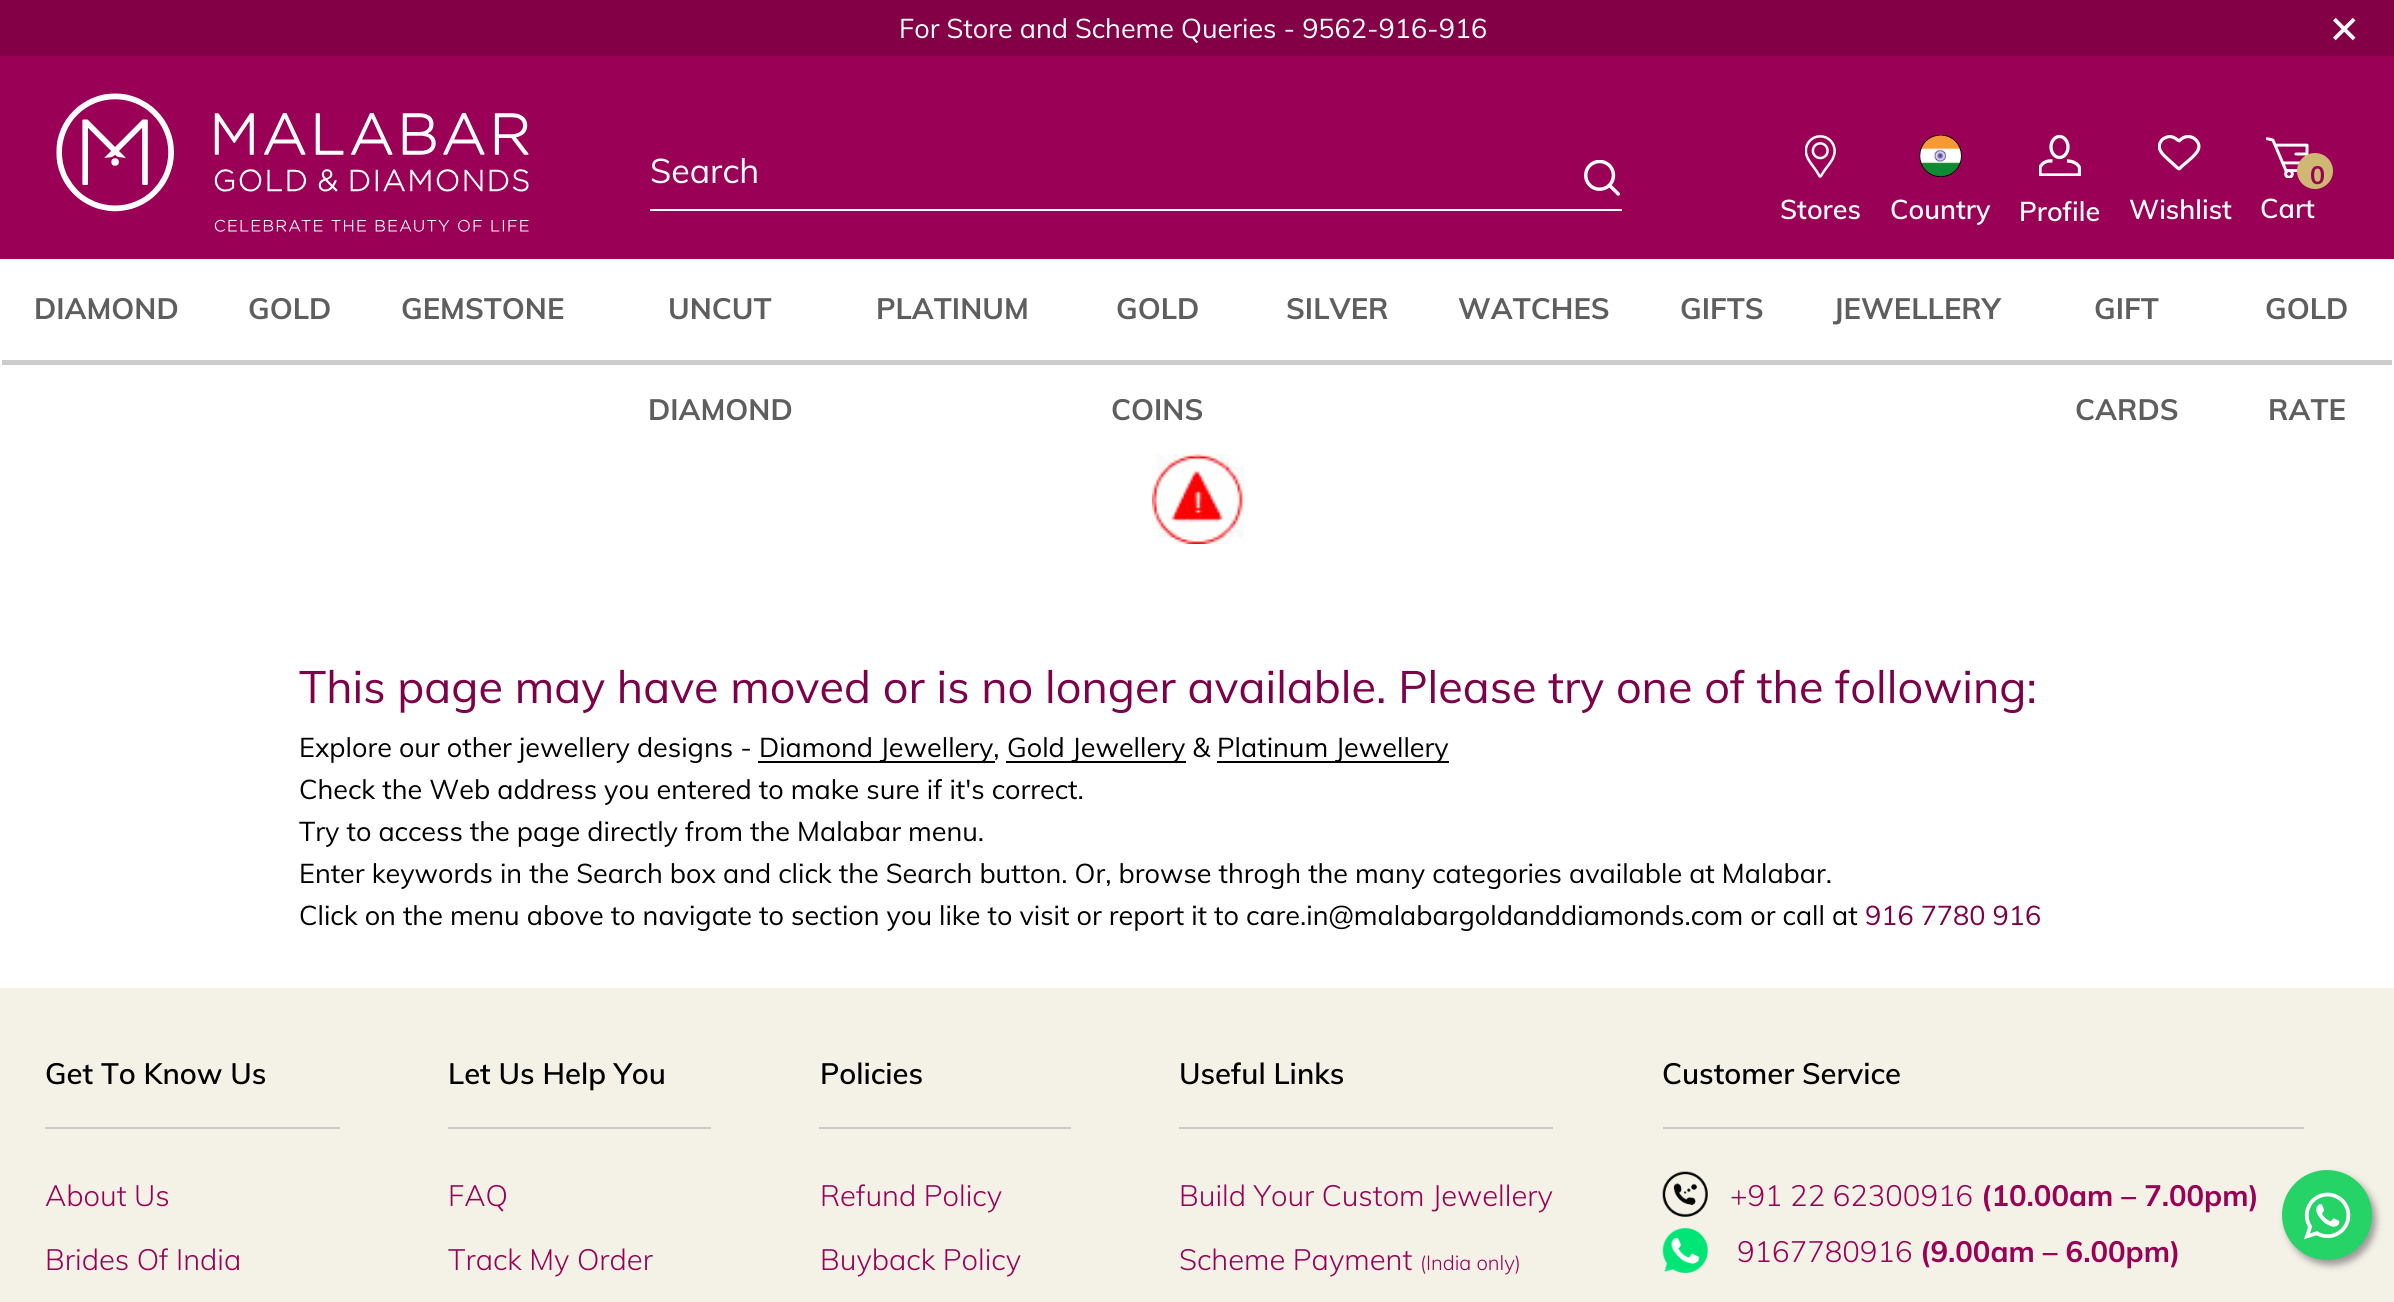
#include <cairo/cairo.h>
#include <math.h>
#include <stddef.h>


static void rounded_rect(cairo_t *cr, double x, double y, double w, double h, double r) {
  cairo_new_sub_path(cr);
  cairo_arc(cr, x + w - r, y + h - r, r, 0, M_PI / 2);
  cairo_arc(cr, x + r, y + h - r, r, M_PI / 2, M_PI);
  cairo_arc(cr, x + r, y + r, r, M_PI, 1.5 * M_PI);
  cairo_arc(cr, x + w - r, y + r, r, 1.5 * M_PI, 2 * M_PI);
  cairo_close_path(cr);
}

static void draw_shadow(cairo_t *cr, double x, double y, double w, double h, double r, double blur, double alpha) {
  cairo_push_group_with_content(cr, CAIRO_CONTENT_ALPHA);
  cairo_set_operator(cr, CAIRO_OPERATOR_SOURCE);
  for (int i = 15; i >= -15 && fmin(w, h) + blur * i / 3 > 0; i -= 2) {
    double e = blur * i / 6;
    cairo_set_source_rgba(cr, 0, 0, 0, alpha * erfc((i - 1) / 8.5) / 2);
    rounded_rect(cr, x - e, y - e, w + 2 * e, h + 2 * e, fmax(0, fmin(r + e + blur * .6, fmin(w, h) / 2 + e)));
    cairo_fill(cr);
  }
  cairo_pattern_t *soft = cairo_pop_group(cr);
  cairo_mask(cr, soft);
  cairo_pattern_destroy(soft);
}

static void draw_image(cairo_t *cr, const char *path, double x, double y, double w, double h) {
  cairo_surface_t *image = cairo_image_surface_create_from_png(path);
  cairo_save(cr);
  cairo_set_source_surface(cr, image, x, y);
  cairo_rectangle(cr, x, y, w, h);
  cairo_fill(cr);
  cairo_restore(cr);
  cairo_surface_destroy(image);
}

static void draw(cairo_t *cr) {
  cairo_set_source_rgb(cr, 1, 1, 1);
  cairo_paint(cr);
  cairo_set_source_rgb(cr, 131 / 255.0, 0, 71 / 255.0);
  cairo_rectangle(cr, 0, 0, 2394, 56);
  cairo_fill(cr);
  cairo_set_source_rgb(cr, 154 / 255.0, 0, 86 / 255.0);
  cairo_rectangle(cr, 0, 56, 2394, 203);
  cairo_fill(cr);
  draw_image(cr, "images/1.png", 56, 93, 473, 139);
  cairo_set_source_rgb(cr, 1, 1, 1);
  cairo_rectangle(cr, 650, 209, 972, 2);
  cairo_fill(cr);
  draw_image(cr, "images/2.png", 1584, 160, 36, 36);
  draw_image(cr, "images/3.png", 1805, 135, 31, 43);
  draw_image(cr, "images/4.png", 1919, 135, 43, 42);
  cairo_new_path(cr);
  cairo_move_to(cr, 2059.5, 136.5);
  cairo_curve_to(cr, 2064, 136.5, 2068, 141, 2068, 147);
  cairo_curve_to(cr, 2068, 153, 2064, 157.5, 2059.5, 157.5);
  cairo_curve_to(cr, 2055, 157.5, 2051, 153, 2051, 147);
  cairo_curve_to(cr, 2051, 141, 2055, 136.5, 2059.5, 136.5);
  cairo_close_path(cr);
  cairo_set_line_width(cr, 3.3);
  cairo_stroke(cr);
  cairo_save(cr);
  cairo_rectangle(cr, 2039, 135, 42, 41);
  cairo_clip(cr);
  cairo_new_path(cr);
  cairo_move_to(cr, 2067, 161);
  cairo_curve_to(cr, 2067, 161, 2076, 160.5, 2079.5, 167.5);
  cairo_line_to(cr, 2079.5, 175);
  cairo_line_to(cr, 2040, 175);
  cairo_line_to(cr, 2040, 167.5);
  cairo_curve_to(cr, 2040, 167.5, 2042.5, 160, 2052.5, 161);
  cairo_stroke(cr);
  cairo_restore(cr);
  cairo_save(cr);
  cairo_rectangle(cr, 2158, 135, 43, 36);
  cairo_clip(cr);
  cairo_new_path(cr);
  cairo_move_to(cr, 2169.5, 136.5);
  cairo_curve_to(cr, 2174.5, 136.5, 2178.5, 141, 2179, 141);
  cairo_line_to(cr, 2182, 138.5);
  cairo_curve_to(cr, 2186, 135.5, 2192.5, 136, 2196, 140);
  cairo_curve_to(cr, 2204, 148.5, 2193.5, 156, 2187.5, 161.5);
  cairo_line_to(cr, 2181.5, 166.5);
  cairo_curve_to(cr, 2179, 169.5, 2179.5, 169.5, 2176.5, 167);
  cairo_line_to(cr, 2164.5, 156);
  cairo_curve_to(cr, 2160, 151.5, 2157, 146.5, 2161.5, 140.5);
  cairo_curve_to(cr, 2163.5, 138, 2166.5, 137, 2169.5, 136.5);
  cairo_close_path(cr);
  cairo_set_line_width(cr, 3.2);
  cairo_stroke(cr);
  cairo_restore(cr);
  draw_image(cr, "images/5.png", 2266, 137, 43, 41);
  cairo_set_source_rgb(cr, 207 / 255.0, 184 / 255.0, 115 / 255.0);
  cairo_arc(cr, 2315, 171, 18, 0, 2 * M_PI);
  cairo_fill(cr);
  cairo_set_source_rgb(cr, 204 / 255.0, 204 / 255.0, 204 / 255.0);
  cairo_rectangle(cr, 2, 360, 2390, 5);
  cairo_fill(cr);
  draw_image(cr, "images/6.png", 1152, 454, 93, 90);
  cairo_set_source_rgb(cr, 0, 0, 0);
  cairo_rectangle(cr, 758, 761, 237, 2);
  cairo_fill(cr);
  cairo_rectangle(cr, 1006, 761, 180, 2);
  cairo_fill(cr);
  cairo_rectangle(cr, 1217, 761, 232, 2);
  cairo_fill(cr);
  cairo_set_source_rgb(cr, 244 / 255.0, 241 / 255.0, 230 / 255.0);
  cairo_rectangle(cr, 0, 988, 2394, 314);
  cairo_fill(cr);
  cairo_set_source_rgb(cr, 204 / 255.0, 202 / 255.0, 202 / 255.0);
  cairo_rectangle(cr, 45, 1127, 295, 2);
  cairo_fill(cr);
  cairo_rectangle(cr, 448, 1127, 263, 2);
  cairo_fill(cr);
  cairo_rectangle(cr, 819, 1127, 252, 2);
  cairo_fill(cr);
  cairo_rectangle(cr, 1179, 1127, 374, 2);
  cairo_fill(cr);
  cairo_rectangle(cr, 1663, 1127, 641, 2);
  cairo_fill(cr);
  draw_image(cr, "images/7.png", 1662, 1171, 46, 46);
  draw_image(cr, "images/8.png", 1662, 1228, 46, 45);
  cairo_set_source_rgb(cr, 153 / 255.0, 153 / 255.0, 153 / 255.0);
  draw_shadow(cr, 2286, 1175, 90, 90, 45, 3.5, 1);
  cairo_set_source_rgb(cr, 37 / 255.0, 211 / 255.0, 102 / 255.0);
  cairo_arc(cr, 2327, 1215, 45, 0, 2 * M_PI);
  cairo_fill(cr);
  draw_image(cr, "images/9.png", 2304, 1192, 47, 48);
  cairo_select_font_face(cr, "Muli", CAIRO_FONT_SLANT_NORMAL, CAIRO_FONT_WEIGHT_NORMAL);
  cairo_set_font_size(cr, 27);
  cairo_set_source_rgb(cr, 1, 1, 1);
  cairo_move_to(cr, 899, 38);
  cairo_show_text(cr, "For Store and Scheme Queries - 9562-916-916");
  cairo_select_font_face(cr, "Liberation Serif", CAIRO_FONT_SLANT_NORMAL, CAIRO_FONT_WEIGHT_BOLD);
  cairo_set_font_size(cr, 54);
  cairo_move_to(cr, 2329, 47);
  cairo_show_text(cr, "×");
  cairo_select_font_face(cr, "Muli", CAIRO_FONT_SLANT_NORMAL, CAIRO_FONT_WEIGHT_NORMAL);
  cairo_set_font_size(cr, 34);
  cairo_move_to(cr, 650, 183);
  cairo_show_text(cr, "Search");
  cairo_select_font_face(cr, "Muli SemiBold", CAIRO_FONT_SLANT_NORMAL, CAIRO_FONT_WEIGHT_NORMAL);
  cairo_set_font_size(cr, 27);
  cairo_move_to(cr, 1780, 219);
  cairo_show_text(cr, "Stores");
  cairo_move_to(cr, 1890, 219);
  cairo_show_text(cr, "Country");
  cairo_move_to(cr, 2019, 221);
  cairo_show_text(cr, "Profile");
  cairo_move_to(cr, 2129, 219);
  cairo_show_text(cr, "Wishlist");
  cairo_select_font_face(cr, "Muli", CAIRO_FONT_SLANT_NORMAL, CAIRO_FONT_WEIGHT_BOLD);
  cairo_set_font_size(cr, 25);
  cairo_set_source_rgb(cr, 154 / 255.0, 0, 86 / 255.0);
  cairo_move_to(cr, 2310, 184);
  cairo_show_text(cr, "0");
  cairo_select_font_face(cr, "Muli SemiBold", CAIRO_FONT_SLANT_NORMAL, CAIRO_FONT_WEIGHT_NORMAL);
  cairo_set_font_size(cr, 27);
  cairo_set_source_rgb(cr, 1, 1, 1);
  cairo_move_to(cr, 2260, 218);
  cairo_show_text(cr, "Cart");
  cairo_select_font_face(cr, "Muli", CAIRO_FONT_SLANT_NORMAL, CAIRO_FONT_WEIGHT_BOLD);
  cairo_set_font_size(cr, 29.25);
  cairo_set_source_rgb(cr, 94 / 255.0, 94 / 255.0, 94 / 255.0);
  cairo_move_to(cr, 34, 319);
  cairo_show_text(cr, "DIAMOND");
  cairo_move_to(cr, 248, 319);
  cairo_show_text(cr, "GOLD");
  cairo_move_to(cr, 401, 319);
  cairo_show_text(cr, "GEMSTONE");
  cairo_move_to(cr, 668, 319);
  cairo_show_text(cr, "UNCUT");
  cairo_move_to(cr, 648, 420);
  cairo_show_text(cr, "DIAMOND");
  cairo_move_to(cr, 876, 319);
  cairo_show_text(cr, "PLATINUM");
  cairo_move_to(cr, 1116, 319);
  cairo_show_text(cr, "GOLD");
  cairo_move_to(cr, 1111, 420);
  cairo_show_text(cr, "COINS");
  cairo_move_to(cr, 1286, 319);
  cairo_show_text(cr, "SILVER");
  cairo_move_to(cr, 1458, 319);
  cairo_show_text(cr, "WATCHES");
  cairo_move_to(cr, 1680, 319);
  cairo_show_text(cr, "GIFTS");
  cairo_move_to(cr, 1833, 319);
  cairo_show_text(cr, "JEWELLERY");
  cairo_move_to(cr, 2094, 319);
  cairo_show_text(cr, "GIFT");
  cairo_move_to(cr, 2075, 420);
  cairo_show_text(cr, "CARDS");
  cairo_move_to(cr, 2265, 319);
  cairo_show_text(cr, "GOLD");
  cairo_move_to(cr, 2268, 420);
  cairo_show_text(cr, "RATE");
  cairo_select_font_face(cr, "Muli", CAIRO_FONT_SLANT_NORMAL, CAIRO_FONT_WEIGHT_NORMAL);
  cairo_set_font_size(cr, 45);
  cairo_set_source_rgb(cr, 125 / 255.0, 0, 73 / 255.0);
  cairo_move_to(cr, 299, 703);
  cairo_show_text(cr, "This page may have moved or is no longer available. Please try one of the following:");
  cairo_set_font_size(cr, 27);
  cairo_set_source_rgb(cr, 0, 0, 0);
  cairo_move_to(cr, 299, 757);
  cairo_show_text(cr, "Explore our other jewellery designs -");
  cairo_move_to(cr, 759, 757);
  cairo_show_text(cr, "Diamond Jewellery,");
  cairo_move_to(cr, 1007, 757);
  cairo_show_text(cr, "Gold Jewellery &");
  cairo_move_to(cr, 1217, 757);
  cairo_show_text(cr, "Platinum Jewellery");
  cairo_move_to(cr, 299, 799);
  cairo_show_text(cr, "Check the Web address you entered to make sure if it's correct.");
  cairo_move_to(cr, 299, 841);
  cairo_show_text(cr, "Try to access the page directly from the Malabar menu.");
  cairo_move_to(cr, 299, 883);
  cairo_show_text(cr, "Enter keywords in the Search box and click the Search button. Or, browse throgh the many categories available at Malabar.");
  cairo_move_to(cr, 299, 925);
  cairo_show_text(cr, "Click on the menu above to navigate to section you like to visit or report it to care.in@malabargoldanddiamonds.com or call at");
  cairo_set_source_rgb(cr, 125 / 255.0, 0, 73 / 255.0);
  cairo_move_to(cr, 1865, 925);
  cairo_show_text(cr, "916 7780 916");
  cairo_select_font_face(cr, "Muli SemiBold", CAIRO_FONT_SLANT_NORMAL, CAIRO_FONT_WEIGHT_NORMAL);
  cairo_set_font_size(cr, 29.25);
  cairo_set_source_rgb(cr, 0, 0, 0);
  cairo_move_to(cr, 45, 1084);
  cairo_show_text(cr, "Get To Know Us");
  cairo_select_font_face(cr, "Muli Light", CAIRO_FONT_SLANT_NORMAL, CAIRO_FONT_WEIGHT_NORMAL);
  cairo_set_source_rgb(cr, 154 / 255.0, 0, 86 / 255.0);
  cairo_move_to(cr, 45, 1206);
  cairo_show_text(cr, "About Us");
  cairo_move_to(cr, 45, 1270);
  cairo_show_text(cr, "Brides Of India");
  cairo_select_font_face(cr, "Muli SemiBold", CAIRO_FONT_SLANT_NORMAL, CAIRO_FONT_WEIGHT_NORMAL);
  cairo_set_source_rgb(cr, 0, 0, 0);
  cairo_move_to(cr, 448, 1084);
  cairo_show_text(cr, "Let Us Help You");
  cairo_select_font_face(cr, "Muli Light", CAIRO_FONT_SLANT_NORMAL, CAIRO_FONT_WEIGHT_NORMAL);
  cairo_set_source_rgb(cr, 154 / 255.0, 0, 86 / 255.0);
  cairo_move_to(cr, 448, 1206);
  cairo_show_text(cr, "FAQ");
  cairo_move_to(cr, 448, 1270);
  cairo_show_text(cr, "Track My Order");
  cairo_select_font_face(cr, "Muli SemiBold", CAIRO_FONT_SLANT_NORMAL, CAIRO_FONT_WEIGHT_NORMAL);
  cairo_set_source_rgb(cr, 0, 0, 0);
  cairo_move_to(cr, 820, 1084);
  cairo_show_text(cr, "Policies");
  cairo_select_font_face(cr, "Muli Light", CAIRO_FONT_SLANT_NORMAL, CAIRO_FONT_WEIGHT_NORMAL);
  cairo_set_source_rgb(cr, 154 / 255.0, 0, 86 / 255.0);
  cairo_move_to(cr, 820, 1206);
  cairo_show_text(cr, "Refund Policy");
  cairo_move_to(cr, 820, 1270);
  cairo_show_text(cr, "Buyback Policy");
  cairo_select_font_face(cr, "Muli SemiBold", CAIRO_FONT_SLANT_NORMAL, CAIRO_FONT_WEIGHT_NORMAL);
  cairo_set_source_rgb(cr, 0, 0, 0);
  cairo_move_to(cr, 1179, 1084);
  cairo_show_text(cr, "Useful Links");
  cairo_select_font_face(cr, "Muli Light", CAIRO_FONT_SLANT_NORMAL, CAIRO_FONT_WEIGHT_NORMAL);
  cairo_set_source_rgb(cr, 154 / 255.0, 0, 86 / 255.0);
  cairo_move_to(cr, 1179, 1206);
  cairo_show_text(cr, "Build Your Custom Jewellery");
  cairo_move_to(cr, 1179, 1270);
  cairo_show_text(cr, "Scheme Payment");
  cairo_set_font_size(cr, 20.25);
  cairo_move_to(cr, 1420, 1270);
  cairo_show_text(cr, "(India only)");
  cairo_select_font_face(cr, "Muli SemiBold", CAIRO_FONT_SLANT_NORMAL, CAIRO_FONT_WEIGHT_NORMAL);
  cairo_set_font_size(cr, 29.25);
  cairo_set_source_rgb(cr, 0, 0, 0);
  cairo_move_to(cr, 1662, 1084);
  cairo_show_text(cr, "Customer Service");
  cairo_select_font_face(cr, "Muli Light", CAIRO_FONT_SLANT_NORMAL, CAIRO_FONT_WEIGHT_NORMAL);
  cairo_set_source_rgb(cr, 154 / 255.0, 0, 86 / 255.0);
  cairo_move_to(cr, 1730, 1206);
  cairo_show_text(cr, "+91 22 62300916");
  cairo_select_font_face(cr, "Muli", CAIRO_FONT_SLANT_NORMAL, CAIRO_FONT_WEIGHT_BOLD);
  cairo_move_to(cr, 1981, 1206);
  cairo_show_text(cr, "(10.00am – 7.00pm)");
  cairo_select_font_face(cr, "Muli Light", CAIRO_FONT_SLANT_NORMAL, CAIRO_FONT_WEIGHT_NORMAL);
  cairo_move_to(cr, 1737, 1262);
  cairo_show_text(cr, "9167780916");
  cairo_select_font_face(cr, "Muli", CAIRO_FONT_SLANT_NORMAL, CAIRO_FONT_WEIGHT_BOLD);
  cairo_move_to(cr, 1920, 1262);
  cairo_show_text(cr, "(9.00am – 6.00pm)");
}

int main(void) {
  cairo_surface_t *surface = cairo_image_surface_create(CAIRO_FORMAT_RGB24, 2394, 1302);
  cairo_t *cr = cairo_create(surface);
  cairo_font_options_t *options = cairo_font_options_create();
  cairo_font_options_set_hint_metrics(options, CAIRO_HINT_METRICS_OFF);
  cairo_font_options_set_hint_style(options, CAIRO_HINT_STYLE_NONE);
  cairo_set_font_options(cr, options);
  cairo_set_miter_limit(cr, 4);
  draw(cr);
  cairo_surface_write_to_png(surface, "out.png");
  cairo_font_options_destroy(options);
  cairo_destroy(cr);
  cairo_surface_destroy(surface);
  return 0;
}
